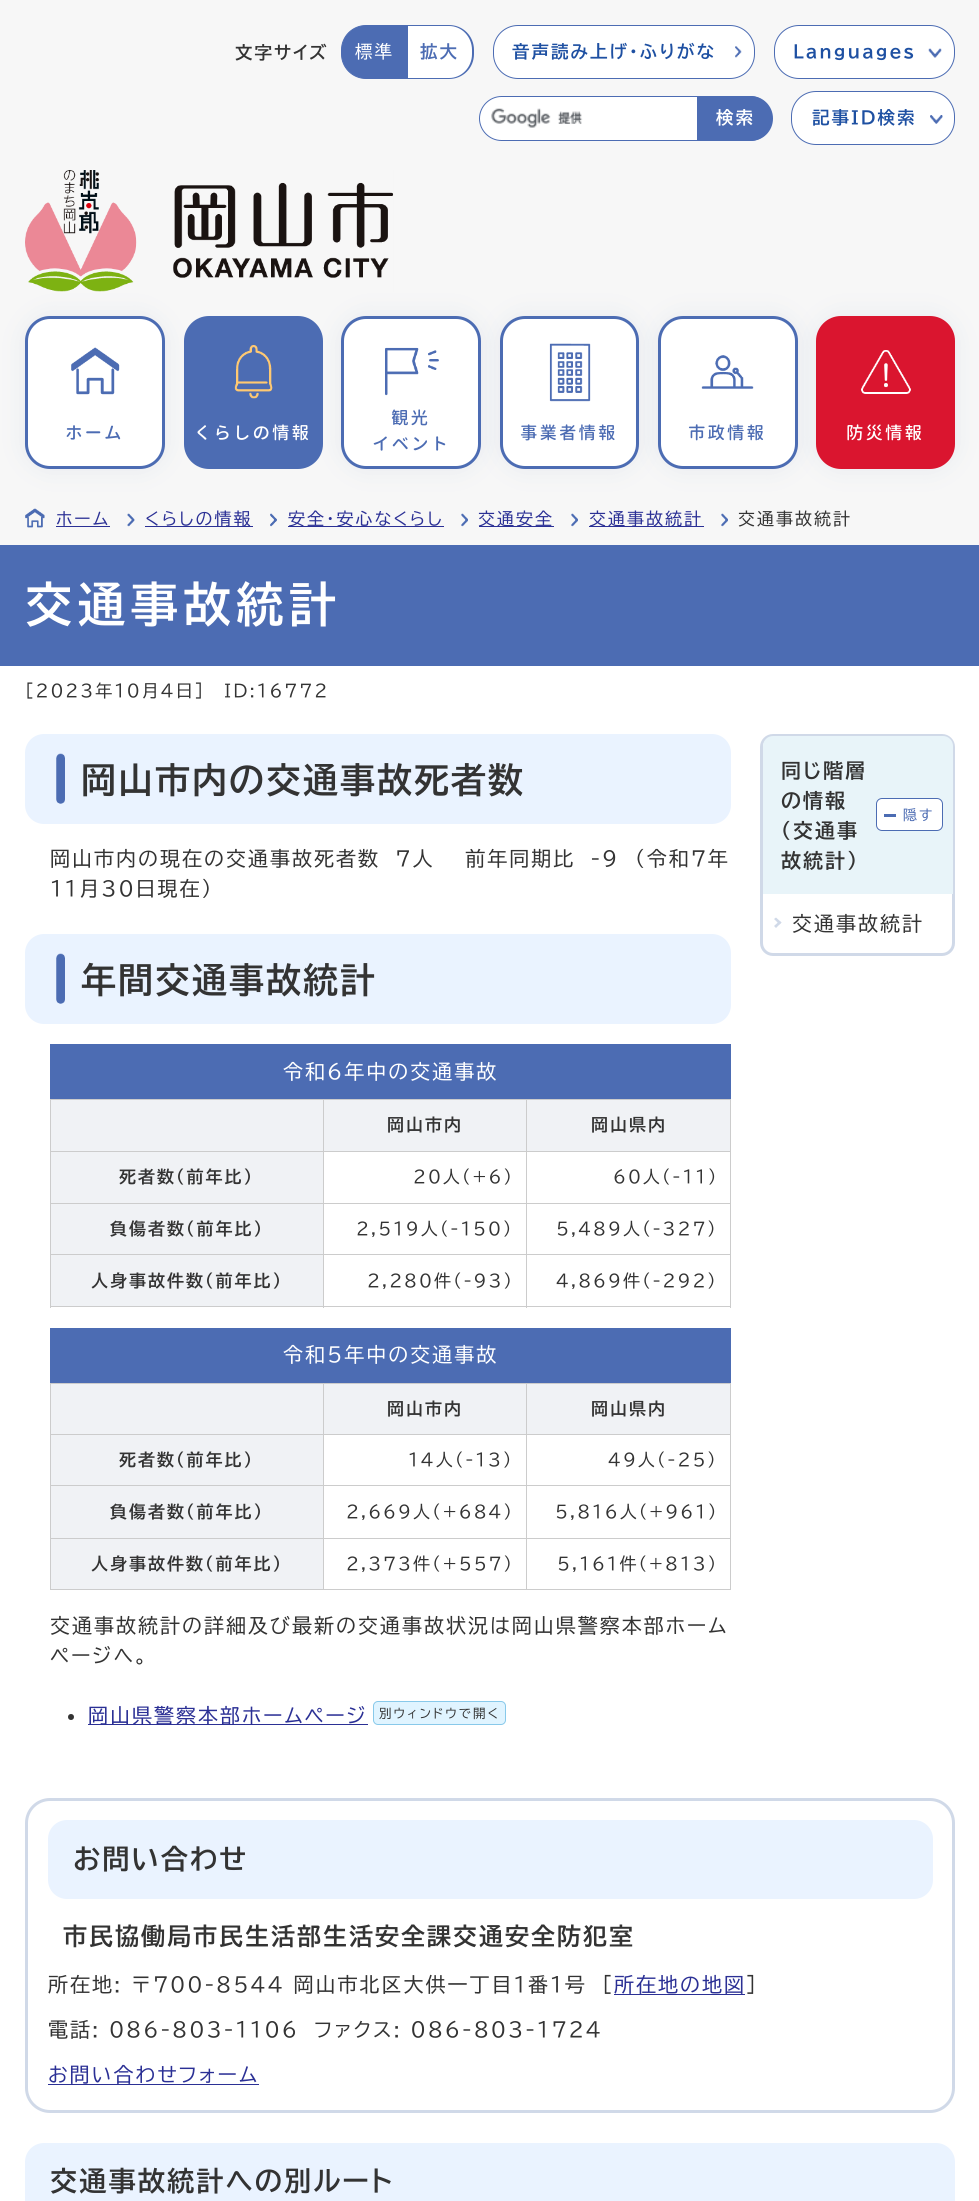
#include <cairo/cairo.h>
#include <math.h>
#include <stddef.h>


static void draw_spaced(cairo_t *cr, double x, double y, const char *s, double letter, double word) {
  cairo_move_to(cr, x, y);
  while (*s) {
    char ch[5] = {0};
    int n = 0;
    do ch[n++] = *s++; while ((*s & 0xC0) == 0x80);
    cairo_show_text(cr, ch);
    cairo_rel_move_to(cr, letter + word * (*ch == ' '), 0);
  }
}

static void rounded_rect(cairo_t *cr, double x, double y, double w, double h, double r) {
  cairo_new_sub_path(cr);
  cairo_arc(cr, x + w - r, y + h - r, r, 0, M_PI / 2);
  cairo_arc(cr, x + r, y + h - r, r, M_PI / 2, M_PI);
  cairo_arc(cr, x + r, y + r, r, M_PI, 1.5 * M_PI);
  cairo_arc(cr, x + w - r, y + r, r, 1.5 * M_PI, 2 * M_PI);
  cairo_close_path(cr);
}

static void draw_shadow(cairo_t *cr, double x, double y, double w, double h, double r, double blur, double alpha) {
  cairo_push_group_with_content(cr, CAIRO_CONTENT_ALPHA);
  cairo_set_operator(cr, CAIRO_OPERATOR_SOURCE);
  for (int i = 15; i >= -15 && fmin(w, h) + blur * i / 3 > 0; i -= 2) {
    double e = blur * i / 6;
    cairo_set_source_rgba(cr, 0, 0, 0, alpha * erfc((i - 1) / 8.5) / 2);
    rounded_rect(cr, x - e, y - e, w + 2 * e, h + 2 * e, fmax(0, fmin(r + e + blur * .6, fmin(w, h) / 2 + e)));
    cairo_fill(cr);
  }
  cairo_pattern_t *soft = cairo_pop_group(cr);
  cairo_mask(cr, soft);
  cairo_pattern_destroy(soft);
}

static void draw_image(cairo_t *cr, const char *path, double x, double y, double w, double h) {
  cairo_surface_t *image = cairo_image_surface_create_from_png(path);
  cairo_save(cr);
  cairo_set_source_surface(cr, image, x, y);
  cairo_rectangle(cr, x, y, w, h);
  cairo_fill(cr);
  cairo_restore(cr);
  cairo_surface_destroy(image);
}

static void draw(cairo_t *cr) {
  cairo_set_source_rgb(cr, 247 / 255.0, 247 / 255.0, 247 / 255.0);
  cairo_paint(cr);
  cairo_set_source_rgb(cr, 76 / 255.0, 108 / 255.0, 179 / 255.0);
  cairo_new_path(cr);
  cairo_move_to(cr, 366, 25.5);
  cairo_line_to(cr, 407.5, 25.5);
  cairo_line_to(cr, 407.5, 78.5);
  cairo_line_to(cr, 366, 78.5);
  cairo_curve_to(cr, 352.5, 78.5, 341.5, 67.5, 341.5, 54);
  cairo_line_to(cr, 341.5, 50);
  cairo_curve_to(cr, 341.5, 36.5, 352.5, 25.5, 366, 25.5);
  cairo_close_path(cr);
  cairo_fill_preserve(cr);
  cairo_set_line_width(cr, 1);
  cairo_stroke(cr);
  cairo_set_source_rgb(cr, 1, 1, 1);
  cairo_new_path(cr);
  cairo_move_to(cr, 408, 25);
  cairo_line_to(cr, 449, 25);
  cairo_curve_to(cr, 463, 25, 474, 36, 474, 50);
  cairo_line_to(cr, 474, 54);
  cairo_curve_to(cr, 474, 68, 463, 79, 449, 79);
  cairo_line_to(cr, 408, 79);
  cairo_close_path(cr);
  cairo_fill(cr);
  cairo_set_source_rgb(cr, 76 / 255.0, 108 / 255.0, 179 / 255.0);
  cairo_set_fill_rule(cr, CAIRO_FILL_RULE_EVEN_ODD);
  cairo_new_path(cr);
  cairo_move_to(cr, 408, 25);
  cairo_line_to(cr, 449, 25);
  cairo_curve_to(cr, 463, 25, 474, 36, 474, 50);
  cairo_line_to(cr, 474, 54);
  cairo_curve_to(cr, 474, 68, 463, 79, 449, 79);
  cairo_line_to(cr, 408, 79);
  cairo_close_path(cr);
  cairo_move_to(cr, 408, 26);
  cairo_line_to(cr, 449, 26);
  cairo_curve_to(cr, 462, 26, 472, 37, 472, 50);
  cairo_line_to(cr, 472, 54);
  cairo_curve_to(cr, 472, 67, 462, 78, 449, 78);
  cairo_line_to(cr, 408, 78);
  cairo_close_path(cr);
  cairo_fill(cr);
  cairo_set_source_rgb(cr, 1, 1, 1);
  rounded_rect(cr, 493.5, 25.5, 261, 53, 24.5);
  cairo_fill_preserve(cr);
  cairo_set_source_rgb(cr, 76 / 255.0, 108 / 255.0, 179 / 255.0);
  cairo_stroke(cr);
  draw_image(cr, "images/1.png", 735, 46, 7, 12);
  cairo_set_source_rgb(cr, 1, 1, 1);
  rounded_rect(cr, 774.5, 25.5, 180, 53, 24.5);
  cairo_fill_preserve(cr);
  cairo_set_source_rgb(cr, 76 / 255.0, 108 / 255.0, 179 / 255.0);
  cairo_stroke(cr);
  draw_image(cr, "images/2.png", 928, 48, 14, 10);
  cairo_set_source_rgb(cr, 1, 1, 1);
  cairo_new_path(cr);
  cairo_move_to(cr, 501.5, 96);
  cairo_line_to(cr, 698, 96);
  cairo_line_to(cr, 698, 141);
  cairo_line_to(cr, 501.5, 141);
  cairo_curve_to(cr, 489, 141, 479, 131, 479, 118.5);
  cairo_curve_to(cr, 479, 106, 489, 96, 501.5, 96);
  cairo_close_path(cr);
  cairo_fill(cr);
  draw_image(cr, "images/3.png", 491, 108, 92, 20);
  cairo_new_path(cr);
  cairo_move_to(cr, 501.5, 96.5);
  cairo_line_to(cr, 697.5, 96.5);
  cairo_line_to(cr, 697.5, 140.5);
  cairo_line_to(cr, 501.5, 140.5);
  cairo_curve_to(cr, 489.5, 140.5, 479.5, 130.5, 479.5, 118.5);
  cairo_curve_to(cr, 479.5, 106.5, 489.5, 96.5, 501.5, 96.5);
  cairo_close_path(cr);
  cairo_set_source_rgb(cr, 76 / 255.0, 108 / 255.0, 179 / 255.0);
  cairo_stroke(cr);
  cairo_new_path(cr);
  cairo_move_to(cr, 698, 96);
  cairo_line_to(cr, 750.5, 96);
  cairo_curve_to(cr, 763, 96, 773, 106, 773, 118.5);
  cairo_curve_to(cr, 773, 131, 763, 141, 750.5, 141);
  cairo_line_to(cr, 698, 141);
  cairo_close_path(cr);
  cairo_fill(cr);
  cairo_new_path(cr);
  cairo_move_to(cr, 698, 96);
  cairo_line_to(cr, 750, 96);
  cairo_curve_to(cr, 762, 96, 772, 106, 772, 119);
  cairo_curve_to(cr, 772, 131, 762, 141, 750, 141);
  cairo_line_to(cr, 698, 141);
  cairo_close_path(cr);
  cairo_move_to(cr, 698, 98);
  cairo_line_to(cr, 750, 98);
  cairo_curve_to(cr, 762, 98, 771, 107, 771, 119);
  cairo_curve_to(cr, 771, 130, 762, 140, 750, 140);
  cairo_line_to(cr, 698, 140);
  cairo_close_path(cr);
  cairo_fill(cr);
  cairo_set_source_rgb(cr, 1, 1, 1);
  rounded_rect(cr, 791.5, 91.5, 163, 53, 24.5);
  cairo_fill_preserve(cr);
  cairo_set_source_rgb(cr, 76 / 255.0, 108 / 255.0, 179 / 255.0);
  cairo_stroke(cr);
  draw_image(cr, "images/4.png", 930, 115, 13, 9);
  draw_image(cr, "images/5.png", 25, 170, 369, 122);
  cairo_set_source_rgb(cr, 76 / 255.0, 108 / 255.0, 179 / 255.0);
  draw_shadow(cr, 25, 316, 140, 153, 25, 12.5, 0.1);
  cairo_set_source_rgb(cr, 1, 1, 1);
  rounded_rect(cr, 26.5, 317.5, 137, 150, 23.5);
  cairo_fill_preserve(cr);
  cairo_set_source_rgb(cr, 76 / 255.0, 108 / 255.0, 179 / 255.0);
  cairo_set_line_width(cr, 3);
  cairo_stroke(cr);
  draw_image(cr, "images/6.png", 71, 347, 49, 48);
  rounded_rect(cr, 185.5, 317.5, 136, 150, 23.5);
  cairo_fill_preserve(cr);
  cairo_stroke(cr);
  draw_image(cr, "images/7.png", 234, 345, 39, 54);
  cairo_set_source_rgb(cr, 76 / 255.0, 108 / 255.0, 179 / 255.0);
  draw_shadow(cr, 341, 316, 140, 153, 25, 12.5, 0.1);
  cairo_set_source_rgb(cr, 1, 1, 1);
  rounded_rect(cr, 342.5, 317.5, 137, 150, 23.5);
  cairo_fill_preserve(cr);
  cairo_set_source_rgb(cr, 76 / 255.0, 108 / 255.0, 179 / 255.0);
  cairo_stroke(cr);
  draw_image(cr, "images/8.png", 385, 347, 54, 49);
  cairo_set_source_rgb(cr, 76 / 255.0, 108 / 255.0, 179 / 255.0);
  draw_shadow(cr, 500, 316, 139, 153, 25, 12.5, 0.1);
  cairo_set_source_rgb(cr, 1, 1, 1);
  rounded_rect(cr, 501.5, 317.5, 136, 150, 23.5);
  cairo_fill_preserve(cr);
  cairo_set_source_rgb(cr, 76 / 255.0, 108 / 255.0, 179 / 255.0);
  cairo_stroke(cr);
  draw_image(cr, "images/9.png", 549, 343, 42, 59);
  cairo_set_source_rgb(cr, 76 / 255.0, 108 / 255.0, 179 / 255.0);
  draw_shadow(cr, 658, 316, 140, 153, 25, 12.5, 0.1);
  cairo_set_source_rgb(cr, 1, 1, 1);
  rounded_rect(cr, 659.5, 317.5, 137, 150, 23.5);
  cairo_fill_preserve(cr);
  cairo_set_source_rgb(cr, 76 / 255.0, 108 / 255.0, 179 / 255.0);
  cairo_stroke(cr);
  draw_image(cr, "images/10.png", 701, 355, 53, 34);
  cairo_set_source_rgb(cr, 76 / 255.0, 108 / 255.0, 179 / 255.0);
  draw_shadow(cr, 816, 316, 139, 153, 25, 12.5, 0.1);
  cairo_set_source_rgb(cr, 218 / 255.0, 21 / 255.0, 47 / 255.0);
  rounded_rect(cr, 817.5, 317.5, 136, 150, 23.5);
  cairo_fill_preserve(cr);
  cairo_stroke(cr);
  draw_image(cr, "images/11.png", 861, 350, 50, 44);
  draw_image(cr, "images/12.png", 25, 508, 20, 20);
  cairo_set_source_rgb(cr, 43 / 255.0, 48 / 255.0, 149 / 255.0);
  cairo_rectangle(cr, 56, 526, 54, 1);
  cairo_fill(cr);
  draw_image(cr, "images/13.png", 127, 513, 8, 14);
  cairo_rectangle(cr, 145, 526, 108, 1);
  cairo_fill(cr);
  draw_image(cr, "images/14.png", 270, 513, 7, 14);
  cairo_rectangle(cr, 288, 526, 156, 1);
  cairo_fill(cr);
  draw_image(cr, "images/15.png", 461, 513, 7, 14);
  cairo_rectangle(cr, 479, 526, 75, 1);
  cairo_fill(cr);
  draw_image(cr, "images/15.png", 571, 513, 7, 14);
  cairo_rectangle(cr, 589, 526, 115, 1);
  cairo_fill(cr);
  draw_image(cr, "images/15.png", 721, 513, 7, 14);
  cairo_set_source_rgb(cr, 76 / 255.0, 108 / 255.0, 179 / 255.0);
  cairo_rectangle(cr, 0, 545, 979, 121);
  cairo_fill(cr);
  cairo_set_source_rgb(cr, 1, 1, 1);
  cairo_rectangle(cr, 0, 666, 979, 1535);
  cairo_fill(cr);
  cairo_set_source_rgb(cr, 234 / 255.0, 243 / 255.0, 1);
  rounded_rect(cr, 25, 734, 706, 90, 19);
  cairo_fill(cr);
  draw_image(cr, "images/16.png", 56, 753, 9, 51);
  rounded_rect(cr, 25, 934, 706, 90, 19);
  cairo_fill(cr);
  draw_image(cr, "images/16.png", 56, 953, 9, 51);
  cairo_set_source_rgb(cr, 76 / 255.0, 108 / 255.0, 179 / 255.0);
  cairo_rectangle(cr, 50, 1044, 681, 55);
  cairo_fill(cr);
  cairo_set_source_rgb(cr, 240 / 255.0, 242 / 255.0, 245 / 255.0);
  cairo_rectangle(cr, 51, 1100, 272, 51);
  cairo_fill(cr);
  cairo_set_source_rgb(cr, 204 / 255.0, 204 / 255.0, 204 / 255.0);
  cairo_rectangle(cr, 526, 1099, 205, 1);
  cairo_fill(cr);
  cairo_set_source_rgb(cr, 240 / 255.0, 242 / 255.0, 245 / 255.0);
  cairo_rectangle(cr, 324, 1100, 406, 51);
  cairo_fill(cr);
  cairo_set_source_rgb(cr, 204 / 255.0, 204 / 255.0, 204 / 255.0);
  cairo_rectangle(cr, 526, 1151, 205, 1);
  cairo_fill(cr);
  cairo_rectangle(cr, 526, 1203, 205, 1);
  cairo_fill(cr);
  cairo_rectangle(cr, 526, 1254, 205, 1);
  cairo_fill(cr);
  cairo_rectangle(cr, 730, 1254, 1, 54);
  cairo_fill(cr);
  cairo_rectangle(cr, 526, 1306, 205, 1);
  cairo_fill(cr);
  cairo_rectangle(cr, 526, 1254, 1, 54);
  cairo_fill(cr);
  cairo_rectangle(cr, 323, 1254, 205, 1);
  cairo_fill(cr);
  cairo_rectangle(cr, 526, 1203, 1, 52);
  cairo_fill(cr);
  cairo_rectangle(cr, 323, 1203, 205, 1);
  cairo_fill(cr);
  cairo_rectangle(cr, 526, 1151, 1, 53);
  cairo_fill(cr);
  cairo_rectangle(cr, 323, 1151, 205, 1);
  cairo_fill(cr);
  cairo_rectangle(cr, 526, 1099, 1, 54);
  cairo_fill(cr);
  cairo_rectangle(cr, 323, 1099, 205, 1);
  cairo_fill(cr);
  cairo_rectangle(cr, 323, 1306, 205, 1);
  cairo_fill(cr);
  cairo_rectangle(cr, 323, 1254, 1, 54);
  cairo_fill(cr);
  cairo_rectangle(cr, 50, 1254, 274, 1);
  cairo_fill(cr);
  cairo_rectangle(cr, 323, 1203, 1, 52);
  cairo_fill(cr);
  cairo_rectangle(cr, 50, 1203, 274, 1);
  cairo_fill(cr);
  cairo_rectangle(cr, 323, 1151, 1, 53);
  cairo_fill(cr);
  cairo_rectangle(cr, 50, 1151, 274, 1);
  cairo_fill(cr);
  cairo_rectangle(cr, 323, 1099, 1, 54);
  cairo_fill(cr);
  cairo_rectangle(cr, 50, 1099, 274, 1);
  cairo_fill(cr);
  cairo_rectangle(cr, 50, 1306, 274, 1);
  cairo_fill(cr);
  cairo_rectangle(cr, 50, 1254, 1, 54);
  cairo_fill(cr);
  cairo_rectangle(cr, 50, 1203, 1, 52);
  cairo_fill(cr);
  cairo_rectangle(cr, 50, 1151, 1, 53);
  cairo_fill(cr);
  cairo_rectangle(cr, 50, 1099, 1, 54);
  cairo_fill(cr);
  cairo_rectangle(cr, 730, 1203, 1, 52);
  cairo_fill(cr);
  cairo_rectangle(cr, 730, 1151, 1, 53);
  cairo_fill(cr);
  cairo_rectangle(cr, 730, 1099, 1, 54);
  cairo_fill(cr);
  cairo_set_source_rgb(cr, 240 / 255.0, 242 / 255.0, 245 / 255.0);
  cairo_rectangle(cr, 51, 1152, 272, 51);
  cairo_fill(cr);
  cairo_rectangle(cr, 51, 1204, 272, 50);
  cairo_fill(cr);
  cairo_rectangle(cr, 51, 1255, 272, 51);
  cairo_fill(cr);
  cairo_set_source_rgb(cr, 76 / 255.0, 108 / 255.0, 179 / 255.0);
  cairo_rectangle(cr, 50, 1328, 681, 55);
  cairo_fill(cr);
  cairo_set_source_rgb(cr, 240 / 255.0, 242 / 255.0, 245 / 255.0);
  cairo_rectangle(cr, 51, 1384, 272, 50);
  cairo_fill(cr);
  cairo_set_source_rgb(cr, 204 / 255.0, 204 / 255.0, 204 / 255.0);
  cairo_rectangle(cr, 526, 1383, 205, 1);
  cairo_fill(cr);
  cairo_set_source_rgb(cr, 240 / 255.0, 242 / 255.0, 245 / 255.0);
  cairo_rectangle(cr, 324, 1384, 406, 50);
  cairo_fill(cr);
  cairo_set_source_rgb(cr, 204 / 255.0, 204 / 255.0, 204 / 255.0);
  cairo_rectangle(cr, 526, 1434, 205, 1);
  cairo_fill(cr);
  cairo_rectangle(cr, 526, 1485, 205, 1);
  cairo_fill(cr);
  cairo_rectangle(cr, 526, 1538, 205, 1);
  cairo_fill(cr);
  cairo_rectangle(cr, 730, 1538, 1, 52);
  cairo_fill(cr);
  cairo_rectangle(cr, 526, 1589, 205, 1);
  cairo_fill(cr);
  cairo_rectangle(cr, 526, 1538, 1, 52);
  cairo_fill(cr);
  cairo_rectangle(cr, 323, 1538, 205, 1);
  cairo_fill(cr);
  cairo_rectangle(cr, 526, 1485, 1, 54);
  cairo_fill(cr);
  cairo_rectangle(cr, 323, 1485, 205, 1);
  cairo_fill(cr);
  cairo_rectangle(cr, 526, 1434, 1, 52);
  cairo_fill(cr);
  cairo_rectangle(cr, 323, 1434, 205, 1);
  cairo_fill(cr);
  cairo_rectangle(cr, 526, 1383, 1, 52);
  cairo_fill(cr);
  cairo_rectangle(cr, 323, 1383, 205, 1);
  cairo_fill(cr);
  cairo_rectangle(cr, 323, 1589, 205, 1);
  cairo_fill(cr);
  cairo_rectangle(cr, 323, 1538, 1, 52);
  cairo_fill(cr);
  cairo_rectangle(cr, 50, 1538, 274, 1);
  cairo_fill(cr);
  cairo_rectangle(cr, 323, 1485, 1, 54);
  cairo_fill(cr);
  cairo_rectangle(cr, 50, 1485, 274, 1);
  cairo_fill(cr);
  cairo_rectangle(cr, 323, 1434, 1, 52);
  cairo_fill(cr);
  cairo_rectangle(cr, 50, 1434, 274, 1);
  cairo_fill(cr);
  cairo_rectangle(cr, 323, 1383, 1, 52);
  cairo_fill(cr);
  cairo_rectangle(cr, 50, 1383, 274, 1);
  cairo_fill(cr);
  cairo_rectangle(cr, 50, 1589, 274, 1);
  cairo_fill(cr);
  cairo_rectangle(cr, 50, 1538, 1, 52);
  cairo_fill(cr);
  cairo_rectangle(cr, 50, 1485, 1, 54);
  cairo_fill(cr);
  cairo_rectangle(cr, 50, 1434, 1, 52);
  cairo_fill(cr);
  cairo_rectangle(cr, 50, 1383, 1, 52);
  cairo_fill(cr);
  cairo_rectangle(cr, 730, 1485, 1, 54);
  cairo_fill(cr);
  cairo_rectangle(cr, 730, 1434, 1, 52);
  cairo_fill(cr);
  cairo_rectangle(cr, 730, 1383, 1, 52);
  cairo_fill(cr);
  cairo_set_source_rgb(cr, 240 / 255.0, 242 / 255.0, 245 / 255.0);
  cairo_rectangle(cr, 51, 1435, 272, 50);
  cairo_fill(cr);
  cairo_rectangle(cr, 51, 1486, 272, 52);
  cairo_fill(cr);
  cairo_rectangle(cr, 51, 1539, 272, 50);
  cairo_fill(cr);
  cairo_set_source_rgb(cr, 51 / 255.0, 51 / 255.0, 51 / 255.0);
  cairo_arc(cr, 71, 1717, 3, 0, 2 * M_PI);
  cairo_fill(cr);
  cairo_set_source_rgb(cr, 43 / 255.0, 48 / 255.0, 149 / 255.0);
  cairo_rectangle(cr, 88, 1724, 280, 1);
  cairo_fill(cr);
  cairo_set_source_rgb(cr, 224 / 255.0, 244 / 255.0, 1);
  rounded_rect(cr, 373.5, 1701.5, 132, 23, 4.5);
  cairo_fill_preserve(cr);
  cairo_set_source_rgb(cr, 136 / 255.0, 201 / 255.0, 234 / 255.0);
  cairo_set_line_width(cr, 1);
  cairo_stroke(cr);
  rounded_rect(cr, 761.5, 735.5, 192, 219, 11.5);
  cairo_set_source_rgb(cr, 208 / 255.0, 217 / 255.0, 232 / 255.0);
  cairo_set_line_width(cr, 3);
  cairo_stroke(cr);
  cairo_set_source_rgb(cr, 232 / 255.0, 244 / 255.0, 249 / 255.0);
  cairo_new_path(cr);
  cairo_move_to(cr, 773, 736);
  cairo_line_to(cr, 943, 736);
  cairo_curve_to(cr, 948.5, 736, 953, 740.5, 953, 746);
  cairo_line_to(cr, 953, 894);
  cairo_line_to(cr, 763, 894);
  cairo_line_to(cr, 763, 746);
  cairo_curve_to(cr, 763, 740.5, 767.5, 736, 773, 736);
  cairo_close_path(cr);
  cairo_fill(cr);
  cairo_set_source_rgb(cr, 1, 1, 1);
  rounded_rect(cr, 876.5, 798.5, 66, 32, 5.5);
  cairo_fill_preserve(cr);
  cairo_set_source_rgb(cr, 76 / 255.0, 108 / 255.0, 179 / 255.0);
  cairo_set_line_width(cr, 1);
  cairo_stroke(cr);
  cairo_rectangle(cr, 884, 814, 12, 3);
  cairo_fill(cr);
  cairo_set_source_rgb(cr, 208 / 255.0, 217 / 255.0, 232 / 255.0);
  cairo_set_fill_rule(cr, CAIRO_FILL_RULE_WINDING);
  cairo_new_path(cr);
  cairo_move_to(cr, 774, 919);
  cairo_line_to(cr, 776, 917.5);
  cairo_line_to(cr, 781.5, 922.5);
  cairo_line_to(cr, 779.5, 924.5);
  cairo_close_path(cr);
  cairo_fill(cr);
  cairo_new_path(cr);
  cairo_move_to(cr, 774, 926);
  cairo_line_to(cr, 779.5, 921);
  cairo_line_to(cr, 781.5, 922.5);
  cairo_line_to(cr, 776, 928);
  cairo_close_path(cr);
  cairo_fill(cr);
  rounded_rect(cr, 26.5, 1799.5, 927, 312, 23.5);
  cairo_set_line_width(cr, 3);
  cairo_stroke(cr);
  cairo_set_source_rgb(cr, 234 / 255.0, 243 / 255.0, 1);
  rounded_rect(cr, 48, 1820, 885, 79, 19);
  cairo_fill(cr);
  cairo_set_source_rgb(cr, 43 / 255.0, 48 / 255.0, 149 / 255.0);
  cairo_rectangle(cr, 614, 1994, 131, 1);
  cairo_fill(cr);
  cairo_rectangle(cr, 48, 2084, 211, 1);
  cairo_fill(cr);
  cairo_set_source_rgb(cr, 234 / 255.0, 243 / 255.0, 1);
  rounded_rect(cr, 25, 2143, 930, 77, 19);
  cairo_fill(cr);
  cairo_select_font_face(cr, "BIZ UDPGothic", CAIRO_FONT_SLANT_NORMAL, CAIRO_FONT_WEIGHT_BOLD);
  cairo_set_font_size(cr, 17.5);
  cairo_set_source_rgb(cr, 51 / 255.0, 51 / 255.0, 51 / 255.0);
  draw_spaced(cr, 235, 59, "文字サイズ", 2, 0);
  cairo_select_font_face(cr, "BIZ UDPGothic", CAIRO_FONT_SLANT_NORMAL, CAIRO_FONT_WEIGHT_NORMAL);
  cairo_set_source_rgb(cr, 1, 1, 1);
  draw_spaced(cr, 355, 58, "標準", 2, 0);
  cairo_select_font_face(cr, "BIZ UDPGothic", CAIRO_FONT_SLANT_NORMAL, CAIRO_FONT_WEIGHT_BOLD);
  cairo_set_source_rgb(cr, 76 / 255.0, 108 / 255.0, 179 / 255.0);
  draw_spaced(cr, 420, 58, "拡大", 2, 0);
  cairo_set_source_rgb(cr, 30 / 255.0, 80 / 255.0, 162 / 255.0);
  draw_spaced(cr, 512, 58, "音声読み上げ・ふりがな", 2, 0);
  draw_spaced(cr, 793, 58, "Languages", 2, 0);
  cairo_set_source_rgb(cr, 1, 1, 1);
  draw_spaced(cr, 716, 124, "検索", 2, 0);
  cairo_set_source_rgb(cr, 30 / 255.0, 80 / 255.0, 162 / 255.0);
  draw_spaced(cr, 812, 124, "記事ID検索", 2, 0);
  cairo_select_font_face(cr, "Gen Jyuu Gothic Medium", CAIRO_FONT_SLANT_NORMAL, CAIRO_FONT_WEIGHT_NORMAL);
  cairo_set_source_rgb(cr, 76 / 255.0, 108 / 255.0, 179 / 255.0);
  draw_spaced(cr, 65, 439, "ホーム", 2, 0);
  cairo_set_source_rgb(cr, 1, 1, 1);
  draw_spaced(cr, 194, 439, "くらしの情報", 2, 0);
  cairo_set_source_rgb(cr, 76 / 255.0, 108 / 255.0, 179 / 255.0);
  draw_spaced(cr, 391, 424, "観光", 2, 0);
  draw_spaced(cr, 372, 450, "イベント", 2, 0);
  draw_spaced(cr, 520, 439, "事業者情報", 2, 0);
  draw_spaced(cr, 688, 439, "市政情報", 2, 0);
  cairo_set_source_rgb(cr, 1, 1, 1);
  draw_spaced(cr, 846, 439, "防災情報", 2, 0);
  cairo_select_font_face(cr, "BIZ UDPGothic", CAIRO_FONT_SLANT_NORMAL, CAIRO_FONT_WEIGHT_NORMAL);
  cairo_set_font_size(cr, 17);
  cairo_set_source_rgb(cr, 43 / 255.0, 48 / 255.0, 149 / 255.0);
  draw_spaced(cr, 56, 525, "ホーム", 2, 0);
  draw_spaced(cr, 145, 525, "くらしの情報", 2, 0);
  draw_spaced(cr, 288, 525, "安全・安心なくらし", 2, 0);
  draw_spaced(cr, 478, 525, "交通安全", 2, 0);
  draw_spaced(cr, 589, 525, "交通事故統計", 2, 0);
  cairo_set_source_rgb(cr, 51 / 255.0, 51 / 255.0, 51 / 255.0);
  draw_spaced(cr, 738, 525, "交通事故統計", 2, 0);
  cairo_select_font_face(cr, "BIZ UDPGothic", CAIRO_FONT_SLANT_NORMAL, CAIRO_FONT_WEIGHT_BOLD);
  cairo_set_font_size(cr, 47.5);
  cairo_set_source_rgb(cr, 1, 1, 1);
  draw_spaced(cr, 25, 622, "交通事故統計", 5.25, 0);
  cairo_select_font_face(cr, "BIZ UDPGothic", CAIRO_FONT_SLANT_NORMAL, CAIRO_FONT_WEIGHT_NORMAL);
  cairo_set_font_size(cr, 17);
  cairo_set_source_rgb(cr, 51 / 255.0, 51 / 255.0, 51 / 255.0);
  draw_spaced(cr, 25, 697, "[2023年10月4日]", 2, 0);
  draw_spaced(cr, 224, 697, "ID:16772", 2, 0);
  cairo_select_font_face(cr, "BIZ UDPGothic", CAIRO_FONT_SLANT_NORMAL, CAIRO_FONT_WEIGHT_BOLD);
  cairo_set_font_size(cr, 35);
  draw_spaced(cr, 81, 793, "岡山市内の交通事故死者数", 2, 0);
  cairo_select_font_face(cr, "BIZ UDPGothic", CAIRO_FONT_SLANT_NORMAL, CAIRO_FONT_WEIGHT_NORMAL);
  cairo_set_font_size(cr, 20);
  draw_spaced(cr, 50, 866, "岡山市内の現在の交通事故死者数　7人　　前年同期比　-9　（令和7年", 2, 0);
  draw_spaced(cr, 50, 896, "11月30日現在）", 2, 0);
  cairo_select_font_face(cr, "BIZ UDPGothic", CAIRO_FONT_SLANT_NORMAL, CAIRO_FONT_WEIGHT_BOLD);
  cairo_set_font_size(cr, 35);
  draw_spaced(cr, 81, 993, "年間交通事故統計", 2, 0);
  cairo_select_font_face(cr, "BIZ UDPGothic", CAIRO_FONT_SLANT_NORMAL, CAIRO_FONT_WEIGHT_NORMAL);
  cairo_set_font_size(cr, 20);
  cairo_set_source_rgb(cr, 1, 1, 1);
  draw_spaced(cr, 283, 1079, "令和6年中の交通事故", 2, 0);
  cairo_select_font_face(cr, "BIZ UDPGothic", CAIRO_FONT_SLANT_NORMAL, CAIRO_FONT_WEIGHT_BOLD);
  cairo_set_font_size(cr, 17);
  cairo_set_source_rgb(cr, 51 / 255.0, 51 / 255.0, 51 / 255.0);
  draw_spaced(cr, 387, 1131, "岡山市内", 2, 0);
  draw_spaced(cr, 591, 1131, "岡山県内", 2, 0);
  draw_spaced(cr, 119, 1183, "死者数（前年比）", 2, 0);
  cairo_select_font_face(cr, "BIZ UDPGothic", CAIRO_FONT_SLANT_NORMAL, CAIRO_FONT_WEIGHT_NORMAL);
  draw_spaced(cr, 413, 1183, "20人（+6）", 2, 0);
  draw_spaced(cr, 613, 1183, "60人（-11）", 2, 0);
  cairo_select_font_face(cr, "BIZ UDPGothic", CAIRO_FONT_SLANT_NORMAL, CAIRO_FONT_WEIGHT_BOLD);
  draw_spaced(cr, 110, 1235, "負傷者数（前年比）", 2, 0);
  cairo_select_font_face(cr, "BIZ UDPGothic", CAIRO_FONT_SLANT_NORMAL, CAIRO_FONT_WEIGHT_NORMAL);
  draw_spaced(cr, 356, 1235, "2,519人（-150）", 2, 0);
  draw_spaced(cr, 556, 1235, "5,489人（-327）", 2, 0);
  cairo_select_font_face(cr, "BIZ UDPGothic", CAIRO_FONT_SLANT_NORMAL, CAIRO_FONT_WEIGHT_BOLD);
  draw_spaced(cr, 91, 1287, "人身事故件数（前年比）", 2, 0);
  cairo_select_font_face(cr, "BIZ UDPGothic", CAIRO_FONT_SLANT_NORMAL, CAIRO_FONT_WEIGHT_NORMAL);
  draw_spaced(cr, 367, 1287, "2,280件（-93）", 2, 0);
  draw_spaced(cr, 556, 1287, "4,869件（-292）", 2, 0);
  cairo_set_font_size(cr, 20);
  cairo_set_source_rgb(cr, 1, 1, 1);
  draw_spaced(cr, 283, 1362, "令和5年中の交通事故", 2, 0);
  cairo_select_font_face(cr, "BIZ UDPGothic", CAIRO_FONT_SLANT_NORMAL, CAIRO_FONT_WEIGHT_BOLD);
  cairo_set_font_size(cr, 17);
  cairo_set_source_rgb(cr, 51 / 255.0, 51 / 255.0, 51 / 255.0);
  draw_spaced(cr, 387, 1415, "岡山市内", 2, 0);
  draw_spaced(cr, 591, 1415, "岡山県内", 2, 0);
  draw_spaced(cr, 119, 1466, "死者数（前年比）", 2, 0);
  cairo_select_font_face(cr, "BIZ UDPGothic", CAIRO_FONT_SLANT_NORMAL, CAIRO_FONT_WEIGHT_NORMAL);
  draw_spaced(cr, 408, 1466, "14人（-13）", 2, 0);
  draw_spaced(cr, 608, 1466, "49人（-25）", 2, 0);
  cairo_select_font_face(cr, "BIZ UDPGothic", CAIRO_FONT_SLANT_NORMAL, CAIRO_FONT_WEIGHT_BOLD);
  draw_spaced(cr, 110, 1518, "負傷者数（前年比）", 2, 0);
  cairo_select_font_face(cr, "BIZ UDPGothic", CAIRO_FONT_SLANT_NORMAL, CAIRO_FONT_WEIGHT_NORMAL);
  draw_spaced(cr, 346, 1518, "2,669人（+684）", 2, 0);
  draw_spaced(cr, 555, 1518, "5,816人(+961）", 2, 0);
  cairo_select_font_face(cr, "BIZ UDPGothic", CAIRO_FONT_SLANT_NORMAL, CAIRO_FONT_WEIGHT_BOLD);
  draw_spaced(cr, 91, 1570, "人身事故件数（前年比）", 2, 0);
  cairo_select_font_face(cr, "BIZ UDPGothic", CAIRO_FONT_SLANT_NORMAL, CAIRO_FONT_WEIGHT_NORMAL);
  draw_spaced(cr, 346, 1570, "2,373件（+557）", 2, 0);
  draw_spaced(cr, 557, 1570, "5,161件(+813）", 2, 0);
  cairo_set_font_size(cr, 20);
  draw_spaced(cr, 50, 1633, "交通事故統計の詳細及び最新の交通事故状況は岡山県警察本部ホーム", 2, 0);
  draw_spaced(cr, 50, 1663, "ページへ。", 2, 0);
  cairo_set_source_rgb(cr, 43 / 255.0, 48 / 255.0, 149 / 255.0);
  draw_spaced(cr, 88, 1723, "岡山県警察本部ホームページ", 2, 0);
  cairo_set_font_size(cr, 12.5);
  cairo_set_source_rgb(cr, 51 / 255.0, 51 / 255.0, 51 / 255.0);
  draw_spaced(cr, 379, 1718, "別ウィンドウで開く", 2, 0);
  cairo_select_font_face(cr, "BIZ UDPGothic", CAIRO_FONT_SLANT_NORMAL, CAIRO_FONT_WEIGHT_BOLD);
  cairo_set_font_size(cr, 20);
  draw_spaced(cr, 781, 778, "同じ階層", 2, 0);
  draw_spaced(cr, 781, 808, "の情報", 2, 0);
  draw_spaced(cr, 781, 838, "（交通事", 2, 0);
  draw_spaced(cr, 781, 868, "故統計)", 2, 0);
  cairo_select_font_face(cr, "BIZ UDPGothic", CAIRO_FONT_SLANT_NORMAL, CAIRO_FONT_WEIGHT_NORMAL);
  cairo_set_font_size(cr, 14);
  cairo_set_source_rgb(cr, 76 / 255.0, 108 / 255.0, 179 / 255.0);
  draw_spaced(cr, 903, 820, "隠す", 2, 0);
  cairo_set_font_size(cr, 20);
  cairo_set_source_rgb(cr, 51 / 255.0, 51 / 255.0, 51 / 255.0);
  draw_spaced(cr, 792, 931, "交通事故統計", 2, 0);
  cairo_select_font_face(cr, "BIZ UDPGothic", CAIRO_FONT_SLANT_NORMAL, CAIRO_FONT_WEIGHT_BOLD);
  cairo_set_font_size(cr, 27.25);
  draw_spaced(cr, 73, 1869, "お問い合わせ", 2, 0);
  cairo_set_font_size(cr, 24);
  draw_spaced(cr, 63, 1945, "市民協働局市民生活部生活安全課交通安全防犯室", 2, 0);
  cairo_select_font_face(cr, "BIZ UDPGothic", CAIRO_FONT_SLANT_NORMAL, CAIRO_FONT_WEIGHT_NORMAL);
  cairo_set_font_size(cr, 20);
  draw_spaced(cr, 48, 1992, "所在地: 〒700-8544 岡山市北区大供一丁目1番1号　[", 2, 0);
  cairo_set_source_rgb(cr, 43 / 255.0, 48 / 255.0, 149 / 255.0);
  draw_spaced(cr, 614, 1992, "所在地の地図", 2, 0);
  cairo_set_source_rgb(cr, 51 / 255.0, 51 / 255.0, 51 / 255.0);
  draw_spaced(cr, 746, 1992, "]", 2, 0);
  draw_spaced(cr, 48, 2037, "電話: 086-803-1106　ファクス: 086-803-1724", 2, 0);
  cairo_set_source_rgb(cr, 43 / 255.0, 48 / 255.0, 149 / 255.0);
  draw_spaced(cr, 48, 2082, "お問い合わせフォーム", 2, 0);
  cairo_select_font_face(cr, "BIZ UDPGothic", CAIRO_FONT_SLANT_NORMAL, CAIRO_FONT_WEIGHT_BOLD);
  cairo_set_font_size(cr, 27.25);
  cairo_set_source_rgb(cr, 51 / 255.0, 51 / 255.0, 51 / 255.0);
  draw_spaced(cr, 50, 2191, "交通事故統計への別ルート", 2, 0);
}

int main(void) {
  cairo_surface_t *surface = cairo_image_surface_create(CAIRO_FORMAT_RGB24, 979, 2201);
  cairo_t *cr = cairo_create(surface);
  cairo_font_options_t *options = cairo_font_options_create();
  cairo_font_options_set_hint_metrics(options, CAIRO_HINT_METRICS_OFF);
  cairo_font_options_set_hint_style(options, CAIRO_HINT_STYLE_NONE);
  cairo_set_font_options(cr, options);
  cairo_set_miter_limit(cr, 4);
  draw(cr);
  cairo_surface_write_to_png(surface, "out.png");
  cairo_font_options_destroy(options);
  cairo_destroy(cr);
  cairo_surface_destroy(surface);
  return 0;
}
